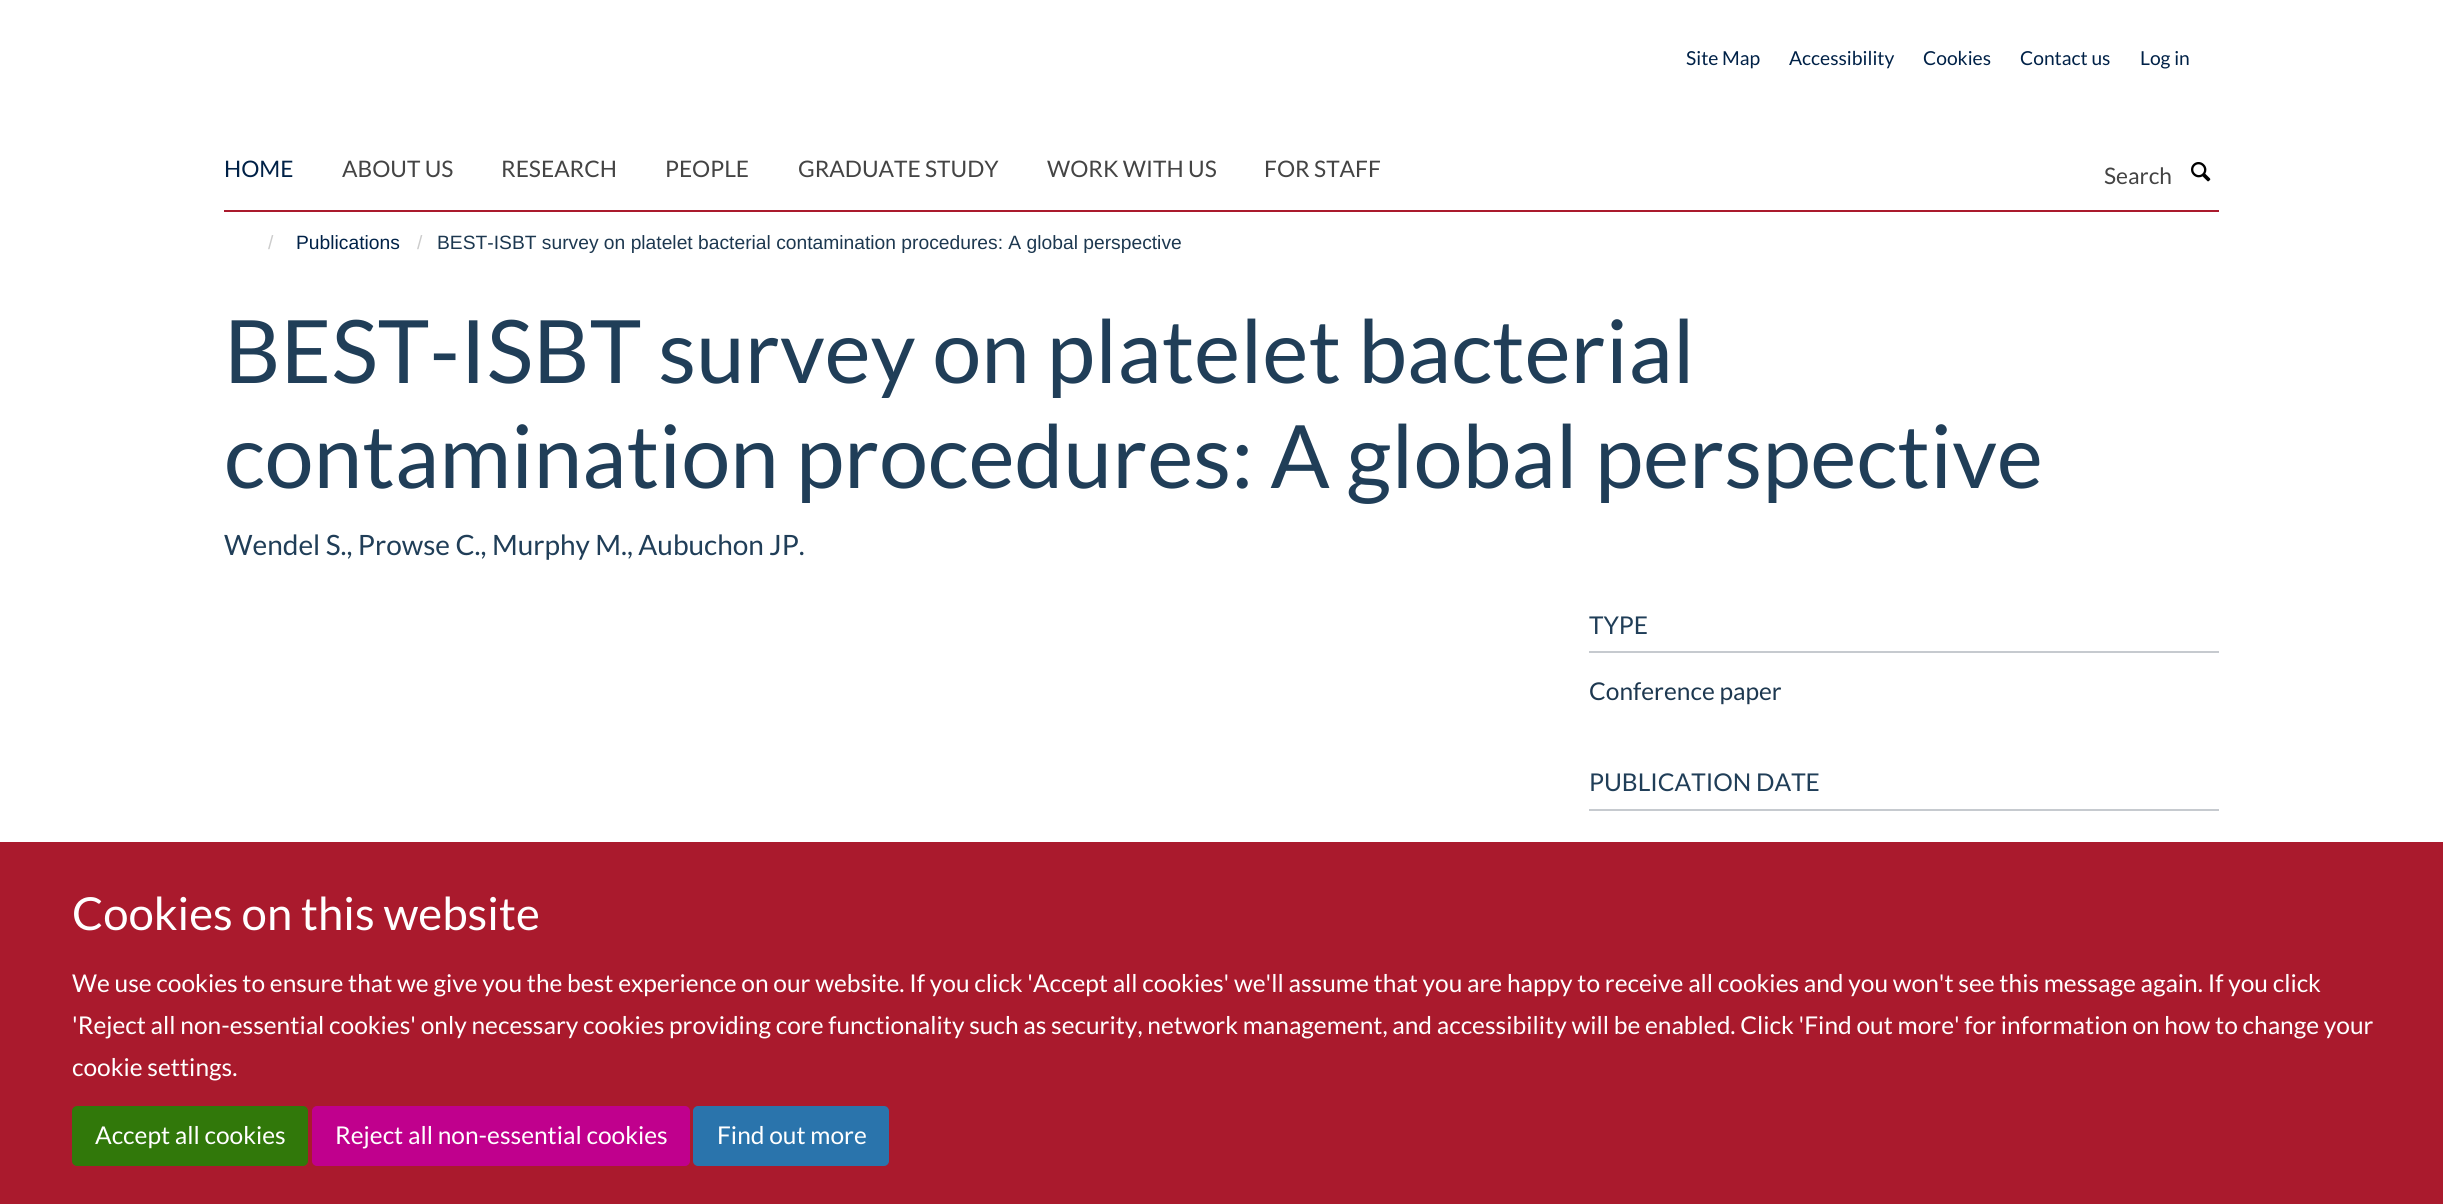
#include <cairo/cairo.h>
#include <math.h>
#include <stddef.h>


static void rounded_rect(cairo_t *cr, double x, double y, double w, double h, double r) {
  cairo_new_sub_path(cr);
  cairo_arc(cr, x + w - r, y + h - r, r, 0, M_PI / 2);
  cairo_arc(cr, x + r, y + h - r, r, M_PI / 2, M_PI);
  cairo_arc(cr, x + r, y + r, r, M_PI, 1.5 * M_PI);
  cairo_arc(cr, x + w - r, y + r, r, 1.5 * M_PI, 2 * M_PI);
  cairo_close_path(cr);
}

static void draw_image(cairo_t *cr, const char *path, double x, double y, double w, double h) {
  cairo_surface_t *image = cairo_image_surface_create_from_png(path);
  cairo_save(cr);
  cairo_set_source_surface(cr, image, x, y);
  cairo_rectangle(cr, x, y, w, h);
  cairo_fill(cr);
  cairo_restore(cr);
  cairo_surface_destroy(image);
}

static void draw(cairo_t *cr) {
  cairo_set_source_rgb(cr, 1, 1, 1);
  cairo_paint(cr);
  cairo_set_source_rgb(cr, 170 / 255.0, 26 / 255.0, 45 / 255.0);
  cairo_rectangle(cr, 224, 210, 1995, 2);
  cairo_fill(cr);
  draw_image(cr, "images/1.png", 2191, 162, 20, 20);
  cairo_set_source_rgb(cr, 198 / 255.0, 202 / 255.0, 207 / 255.0);
  cairo_rectangle(cr, 1589, 651, 630, 2);
  cairo_fill(cr);
  cairo_rectangle(cr, 1589, 809, 630, 2);
  cairo_fill(cr);
  cairo_set_source_rgb(cr, 170 / 255.0, 26 / 255.0, 45 / 255.0);
  cairo_rectangle(cr, 0, 842, 2443, 362);
  cairo_fill(cr);
  cairo_set_source_rgb(cr, 49 / 255.0, 120 / 255.0, 10 / 255.0);
  rounded_rect(cr, 73, 1107, 234, 58, 4);
  cairo_fill_preserve(cr);
  cairo_stroke(cr);
  cairo_set_source_rgb(cr, 192 / 255.0, 0, 141 / 255.0);
  rounded_rect(cr, 313, 1107, 376, 58, 4);
  cairo_fill_preserve(cr);
  cairo_stroke(cr);
  cairo_set_source_rgb(cr, 42 / 255.0, 116 / 255.0, 172 / 255.0);
  rounded_rect(cr, 694, 1107, 194, 58, 4);
  cairo_fill_preserve(cr);
  cairo_stroke(cr);
  cairo_select_font_face(cr, "Lato", CAIRO_FONT_SLANT_NORMAL, CAIRO_FONT_WEIGHT_NORMAL);
  cairo_set_font_size(cr, 19.25);
  cairo_set_source_rgb(cr, 0, 33 / 255.0, 71 / 255.0);
  cairo_move_to(cr, 1686, 65);
  cairo_show_text(cr, "Site Map");
  cairo_move_to(cr, 1789, 65);
  cairo_show_text(cr, "Accessibility");
  cairo_move_to(cr, 1923, 65);
  cairo_show_text(cr, "Cookies");
  cairo_move_to(cr, 2020, 65);
  cairo_show_text(cr, "Contact us");
  cairo_move_to(cr, 2140, 65);
  cairo_show_text(cr, "Log in");
  cairo_set_font_size(cr, 22.75);
  cairo_move_to(cr, 224, 177);
  cairo_show_text(cr, "HOME");
  cairo_set_source_rgb(cr, 68 / 255.0, 68 / 255.0, 68 / 255.0);
  cairo_move_to(cr, 342, 177);
  cairo_show_text(cr, "ABOUT US");
  cairo_move_to(cr, 501, 177);
  cairo_show_text(cr, "RESEARCH");
  cairo_move_to(cr, 665, 177);
  cairo_show_text(cr, "PEOPLE");
  cairo_move_to(cr, 798, 177);
  cairo_show_text(cr, "GRADUATE STUDY");
  cairo_move_to(cr, 1047, 177);
  cairo_show_text(cr, "WORK WITH US");
  cairo_move_to(cr, 1264, 177);
  cairo_show_text(cr, "FOR STAFF");
  cairo_move_to(cr, 2104, 184);
  cairo_show_text(cr, "Search");
  cairo_select_font_face(cr, "Liberation Sans", CAIRO_FONT_SLANT_NORMAL, CAIRO_FONT_WEIGHT_NORMAL);
  cairo_set_font_size(cr, 19.25);
  cairo_set_source_rgb(cr, 204 / 255.0, 204 / 255.0, 204 / 255.0);
  cairo_move_to(cr, 268, 249);
  cairo_show_text(cr, "/");
  cairo_set_source_rgb(cr, 0, 33 / 255.0, 71 / 255.0);
  cairo_move_to(cr, 296, 249);
  cairo_show_text(cr, "Publications");
  cairo_set_source_rgb(cr, 204 / 255.0, 204 / 255.0, 204 / 255.0);
  cairo_move_to(cr, 417, 249);
  cairo_show_text(cr, "/");
  cairo_set_source_rgb(cr, 29 / 255.0, 56 / 255.0, 80 / 255.0);
  cairo_move_to(cr, 437, 249);
  cairo_show_text(cr, "BEST-ISBT survey on platelet bacterial contamination procedures: A global perspective");
  cairo_select_font_face(cr, "Lato", CAIRO_FONT_SLANT_NORMAL, CAIRO_FONT_WEIGHT_NORMAL);
  cairo_set_font_size(cr, 87.5);
  cairo_set_source_rgb(cr, 32 / 255.0, 62 / 255.0, 88 / 255.0);
  cairo_move_to(cr, 224, 383);
  cairo_show_text(cr, "BEST-ISBT survey on platelet bacterial");
  cairo_move_to(cr, 224, 488);
  cairo_show_text(cr, "contamination procedures: A global perspective");
  cairo_set_font_size(cr, 28);
  cairo_move_to(cr, 224, 555);
  cairo_show_text(cr, "Wendel S., Prowse C., Murphy M., Aubuchon JP.");
  cairo_set_font_size(cr, 24.5);
  cairo_move_to(cr, 1589, 634);
  cairo_show_text(cr, "TYPE");
  cairo_set_source_rgb(cr, 29 / 255.0, 56 / 255.0, 80 / 255.0);
  cairo_move_to(cr, 1589, 700);
  cairo_show_text(cr, "Conference paper");
  cairo_set_source_rgb(cr, 32 / 255.0, 62 / 255.0, 88 / 255.0);
  cairo_move_to(cr, 1589, 791);
  cairo_show_text(cr, "PUBLICATION DATE");
  cairo_set_font_size(cr, 45.5);
  cairo_set_source_rgb(cr, 1, 1, 1);
  cairo_move_to(cr, 72, 930);
  cairo_show_text(cr, "Cookies on this website");
  cairo_set_font_size(cr, 24.5);
  cairo_move_to(cr, 72, 992);
  cairo_show_text(cr, "We use cookies to ensure that we give you the best experience on our website. If you click 'Accept all cookies' we'll assume that you are happy to receive all cookies and you won't see this message again. If you click");
  cairo_move_to(cr, 72, 1034);
  cairo_show_text(cr, "'Reject all non-essential cookies' only necessary cookies providing core functionality such as security, network management, and accessibility will be enabled. Click 'Find out more' for information on how to change your");
  cairo_move_to(cr, 72, 1076);
  cairo_show_text(cr, "cookie settings.");
  cairo_move_to(cr, 95, 1144);
  cairo_show_text(cr, "Accept all cookies");
  cairo_move_to(cr, 335, 1144);
  cairo_show_text(cr, "Reject all non-essential cookies");
  cairo_move_to(cr, 717, 1144);
  cairo_show_text(cr, "Find out more");
}

int main(void) {
  cairo_surface_t *surface = cairo_image_surface_create(CAIRO_FORMAT_RGB24, 2443, 1204);
  cairo_t *cr = cairo_create(surface);
  cairo_font_options_t *options = cairo_font_options_create();
  cairo_font_options_set_hint_metrics(options, CAIRO_HINT_METRICS_OFF);
  cairo_font_options_set_hint_style(options, CAIRO_HINT_STYLE_NONE);
  cairo_set_font_options(cr, options);
  cairo_set_miter_limit(cr, 4);
  draw(cr);
  cairo_surface_write_to_png(surface, "out.png");
  cairo_font_options_destroy(options);
  cairo_destroy(cr);
  cairo_surface_destroy(surface);
  return 0;
}
